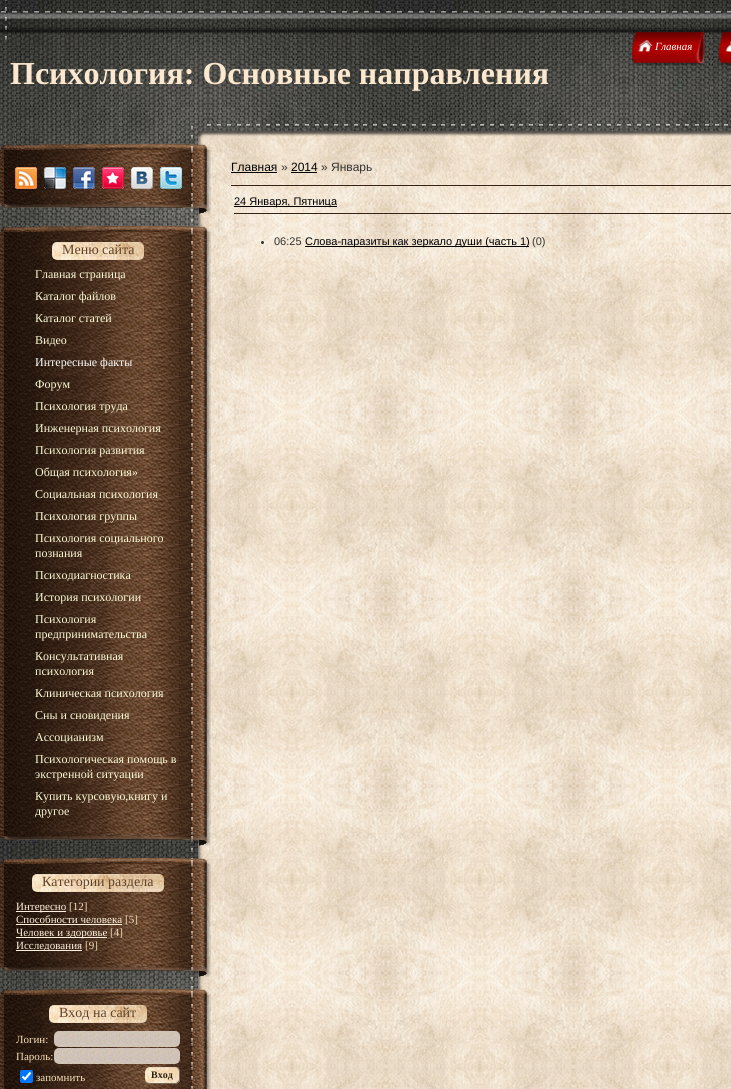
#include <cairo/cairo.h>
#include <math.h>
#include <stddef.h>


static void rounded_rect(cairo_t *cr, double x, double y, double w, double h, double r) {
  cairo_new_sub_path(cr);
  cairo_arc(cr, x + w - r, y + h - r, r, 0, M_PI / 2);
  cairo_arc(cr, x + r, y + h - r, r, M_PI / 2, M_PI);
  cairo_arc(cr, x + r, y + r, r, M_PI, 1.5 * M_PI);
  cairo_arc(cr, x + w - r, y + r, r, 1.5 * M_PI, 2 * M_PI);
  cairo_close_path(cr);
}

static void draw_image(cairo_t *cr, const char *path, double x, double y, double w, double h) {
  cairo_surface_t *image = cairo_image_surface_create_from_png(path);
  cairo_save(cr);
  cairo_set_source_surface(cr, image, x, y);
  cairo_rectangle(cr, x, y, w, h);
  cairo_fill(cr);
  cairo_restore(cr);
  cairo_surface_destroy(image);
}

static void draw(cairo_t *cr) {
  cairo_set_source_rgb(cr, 1, 1, 1);
  cairo_paint(cr);
  draw_image(cr, "images/1.png", 0, 0, 731, 1089);
  draw_image(cr, "images/2.png", 0, 0, 731, 40);
  draw_image(cr, "images/3.png", 631, 32, 7, 34);
  draw_image(cr, "images/4.png", 638, 32, 54, 34);
  draw_image(cr, "images/5.png", 638, 40, 15, 12);
  draw_image(cr, "images/6.png", 692, 32, 13, 34);
  draw_image(cr, "images/7.png", 718, 32, 7, 34);
  draw_image(cr, "images/8.png", 725, 32, 6, 34);
  draw_image(cr, "images/9.png", 725, 41, 6, 11);
  draw_image(cr, "images/10.png", 190, 124, 541, 15);
  draw_image(cr, "images/11.png", 190, 139, 541, 950);
  cairo_set_source_rgb(cr, 0, 0, 0);
  cairo_rectangle(cr, 231, 172, 46, 1);
  cairo_fill(cr);
  cairo_rectangle(cr, 291, 172, 26, 1);
  cairo_fill(cr);
  cairo_set_source_rgb(cr, 54 / 255.0, 35 / 255.0, 22 / 255.0);
  cairo_rectangle(cr, 231, 185, 500, 1);
  cairo_fill(cr);
  cairo_set_source_rgb(cr, 0, 0, 0);
  cairo_rectangle(cr, 234, 206, 103, 1);
  cairo_fill(cr);
  cairo_set_source_rgb(cr, 54 / 255.0, 35 / 255.0, 22 / 255.0);
  cairo_rectangle(cr, 234, 213, 497, 1);
  cairo_fill(cr);
  cairo_set_source_rgb(cr, 51 / 255.0, 51 / 255.0, 51 / 255.0);
  cairo_arc(cr, 262.5, 242.5, 1.5, 0, 2 * M_PI);
  cairo_fill(cr);
  cairo_set_source_rgb(cr, 0, 0, 0);
  cairo_rectangle(cr, 305, 246, 224, 1);
  cairo_fill(cr);
  draw_image(cr, "images/12.png", 0, 144, 211, 6);
  draw_image(cr, "images/13.png", 0, 150, 211, 54);
  draw_image(cr, "images/14.png", 15, 167, 22, 22);
  draw_image(cr, "images/15.png", 44, 167, 22, 22);
  draw_image(cr, "images/16.png", 73, 167, 22, 22);
  draw_image(cr, "images/17.png", 102, 167, 22, 22);
  draw_image(cr, "images/18.png", 131, 167, 22, 22);
  draw_image(cr, "images/19.png", 160, 167, 22, 22);
  draw_image(cr, "images/20.png", 1, 204, 210, 10);
  draw_image(cr, "images/21.png", 0, 226, 211, 6);
  draw_image(cr, "images/22.png", 0, 232, 211, 604);
  draw_image(cr, "images/23.png", 52, 242, 92, 18);
  draw_image(cr, "images/24.png", 1, 836, 210, 10);
  draw_image(cr, "images/25.png", 0, 858, 211, 6);
  draw_image(cr, "images/26.png", 0, 864, 211, 103);
  draw_image(cr, "images/27.png", 32, 874, 132, 18);
  cairo_set_source_rgb(cr, 1, 241 / 255.0, 221 / 255.0);
  cairo_rectangle(cr, 16, 911, 50, 1);
  cairo_fill(cr);
  cairo_rectangle(cr, 16, 924, 106, 1);
  cairo_fill(cr);
  cairo_rectangle(cr, 16, 937, 91, 1);
  cairo_fill(cr);
  cairo_rectangle(cr, 16, 950, 66, 1);
  cairo_fill(cr);
  draw_image(cr, "images/28.png", 1, 967, 210, 10);
  draw_image(cr, "images/29.png", 0, 989, 211, 6);
  draw_image(cr, "images/30.png", 0, 995, 211, 94);
  draw_image(cr, "images/31.png", 49, 1005, 98, 18);
  draw_image(cr, "images/32.png", 54, 1031, 126, 16);
  draw_image(cr, "images/33.png", 54, 1048, 126, 16);
  cairo_set_source_rgb(cr, 0, 117 / 255.0, 1);
  rounded_rect(cr, 20, 1070, 13, 13, 2);
  cairo_fill(cr);
  cairo_new_path(cr);
  cairo_move_to(cr, 22.5, 1076.5);
  cairo_line_to(cr, 25, 1079);
  cairo_line_to(cr, 30.5, 1072.5);
  cairo_set_source_rgb(cr, 1, 1, 1);
  cairo_set_line_width(cr, 2.1);
  cairo_stroke(cr);
  draw_image(cr, "images/34.png", 145, 1067, 35, 17);
  cairo_set_source_rgb(cr, 117 / 255.0, 104 / 255.0, 89 / 255.0);
  cairo_set_fill_rule(cr, CAIRO_FILL_RULE_EVEN_ODD);
  cairo_new_path(cr);
  cairo_move_to(cr, 150, 1067);
  cairo_line_to(cr, 175, 1067);
  cairo_curve_to(cr, 178, 1067, 180, 1069, 180, 1072);
  cairo_line_to(cr, 180, 1079);
  cairo_curve_to(cr, 180, 1082, 178, 1084, 175, 1084);
  cairo_line_to(cr, 150, 1084);
  cairo_curve_to(cr, 147, 1084, 145, 1082, 145, 1079);
  cairo_line_to(cr, 145, 1072);
  cairo_curve_to(cr, 145, 1069, 147, 1067, 150, 1067);
  cairo_close_path(cr);
  cairo_move_to(cr, 150, 1067);
  cairo_line_to(cr, 175, 1067);
  cairo_curve_to(cr, 177, 1067, 179, 1069, 179, 1072);
  cairo_line_to(cr, 179, 1079);
  cairo_curve_to(cr, 179, 1081, 177, 1083, 175, 1083);
  cairo_line_to(cr, 150, 1083);
  cairo_curve_to(cr, 147, 1083, 145, 1081, 145, 1079);
  cairo_line_to(cr, 145, 1072);
  cairo_curve_to(cr, 145, 1069, 147, 1067, 150, 1067);
  cairo_close_path(cr);
  cairo_fill(cr);
  cairo_select_font_face(cr, "Liberation Serif", CAIRO_FONT_SLANT_ITALIC, CAIRO_FONT_WEIGHT_NORMAL);
  cairo_set_font_size(cr, 11);
  cairo_set_source_rgb(cr, 1, 1, 1);
  cairo_move_to(cr, 655, 50);
  cairo_show_text(cr, "Главная");
  cairo_select_font_face(cr, "Liberation Serif", CAIRO_FONT_SLANT_NORMAL, CAIRO_FONT_WEIGHT_BOLD);
  cairo_set_font_size(cr, 32);
  cairo_set_source_rgb(cr, 251 / 255.0, 232 / 255.0, 207 / 255.0);
  cairo_move_to(cr, 10, 84);
  cairo_show_text(cr, "Психология: Основные направления");
  cairo_select_font_face(cr, "Liberation Sans", CAIRO_FONT_SLANT_NORMAL, CAIRO_FONT_WEIGHT_NORMAL);
  cairo_set_font_size(cr, 12);
  cairo_set_source_rgb(cr, 0, 0, 0);
  cairo_move_to(cr, 231, 171);
  cairo_show_text(cr, "Главная");
  cairo_set_source_rgb(cr, 51 / 255.0, 51 / 255.0, 51 / 255.0);
  cairo_move_to(cr, 281, 171);
  cairo_show_text(cr, "»");
  cairo_set_source_rgb(cr, 0, 0, 0);
  cairo_move_to(cr, 291, 171);
  cairo_show_text(cr, "2014");
  cairo_set_source_rgb(cr, 51 / 255.0, 51 / 255.0, 51 / 255.0);
  cairo_move_to(cr, 321, 171);
  cairo_show_text(cr, "» Январь");
  cairo_set_font_size(cr, 11);
  cairo_set_source_rgb(cr, 0, 0, 0);
  cairo_move_to(cr, 234, 205);
  cairo_show_text(cr, "24 Января, Пятница");
  cairo_set_source_rgb(cr, 51 / 255.0, 51 / 255.0, 51 / 255.0);
  cairo_move_to(cr, 274, 245);
  cairo_show_text(cr, "06:25");
  cairo_set_source_rgb(cr, 0, 0, 0);
  cairo_move_to(cr, 305, 245);
  cairo_show_text(cr, "Слова-паразиты как зеркало души (часть 1)");
  cairo_set_source_rgb(cr, 51 / 255.0, 51 / 255.0, 51 / 255.0);
  cairo_move_to(cr, 532, 245);
  cairo_show_text(cr, "(0)");
  cairo_select_font_face(cr, "Liberation Serif", CAIRO_FONT_SLANT_NORMAL, CAIRO_FONT_WEIGHT_NORMAL);
  cairo_set_font_size(cr, 14);
  cairo_set_source_rgb(cr, 95 / 255.0, 66 / 255.0, 43 / 255.0);
  cairo_move_to(cr, 62, 254);
  cairo_show_text(cr, "Меню сайта");
  cairo_set_font_size(cr, 12);
  cairo_set_source_rgb(cr, 252 / 255.0, 250 / 255.0, 215 / 255.0);
  cairo_move_to(cr, 35, 278);
  cairo_show_text(cr, "Главная страница");
  cairo_move_to(cr, 35, 300);
  cairo_show_text(cr, "Каталог файлов");
  cairo_move_to(cr, 35, 322);
  cairo_show_text(cr, "Каталог статей");
  cairo_move_to(cr, 35, 344);
  cairo_show_text(cr, "Видео");
  cairo_set_source_rgb(cr, 1, 1, 1);
  cairo_move_to(cr, 35, 366);
  cairo_show_text(cr, "Интересные факты");
  cairo_set_source_rgb(cr, 252 / 255.0, 250 / 255.0, 215 / 255.0);
  cairo_move_to(cr, 35, 388);
  cairo_show_text(cr, "Форум");
  cairo_move_to(cr, 35, 410);
  cairo_show_text(cr, "Психология труда");
  cairo_move_to(cr, 35, 432);
  cairo_show_text(cr, "Инженерная психология");
  cairo_move_to(cr, 35, 454);
  cairo_show_text(cr, "Психология развития");
  cairo_move_to(cr, 35, 476);
  cairo_show_text(cr, "Общая психология»");
  cairo_move_to(cr, 35, 498);
  cairo_show_text(cr, "Социальная психология");
  cairo_move_to(cr, 35, 520);
  cairo_show_text(cr, "Психология группы");
  cairo_move_to(cr, 35, 542);
  cairo_show_text(cr, "Психология социального");
  cairo_move_to(cr, 35, 557);
  cairo_show_text(cr, "познания");
  cairo_move_to(cr, 35, 579);
  cairo_show_text(cr, "Психодиагностика");
  cairo_move_to(cr, 35, 601);
  cairo_show_text(cr, "История психологии");
  cairo_move_to(cr, 35, 623);
  cairo_show_text(cr, "Психология");
  cairo_move_to(cr, 35, 638);
  cairo_show_text(cr, "предпринимательства");
  cairo_move_to(cr, 35, 660);
  cairo_show_text(cr, "Консультативная");
  cairo_move_to(cr, 35, 675);
  cairo_show_text(cr, "психология");
  cairo_move_to(cr, 35, 697);
  cairo_show_text(cr, "Клиническая психология");
  cairo_move_to(cr, 35, 719);
  cairo_show_text(cr, "Сны и сновидения");
  cairo_move_to(cr, 35, 741);
  cairo_show_text(cr, "Ассоцианизм");
  cairo_move_to(cr, 35, 763);
  cairo_show_text(cr, "Психологическая помощь в");
  cairo_move_to(cr, 35, 778);
  cairo_show_text(cr, "экстренной ситуации");
  cairo_move_to(cr, 35, 800);
  cairo_show_text(cr, "Купить курсовую,книгу и");
  cairo_move_to(cr, 35, 815);
  cairo_show_text(cr, "другое");
  cairo_set_font_size(cr, 14);
  cairo_set_source_rgb(cr, 95 / 255.0, 66 / 255.0, 43 / 255.0);
  cairo_move_to(cr, 42, 886);
  cairo_show_text(cr, "Категории раздела");
  cairo_set_font_size(cr, 11);
  cairo_set_source_rgb(cr, 1, 241 / 255.0, 221 / 255.0);
  cairo_move_to(cr, 16, 910);
  cairo_show_text(cr, "Интересно");
  cairo_set_source_rgb(cr, 247 / 255.0, 223 / 255.0, 186 / 255.0);
  cairo_move_to(cr, 69, 910);
  cairo_show_text(cr, "[12]");
  cairo_set_source_rgb(cr, 1, 241 / 255.0, 221 / 255.0);
  cairo_move_to(cr, 16, 923);
  cairo_show_text(cr, "Способности человека");
  cairo_set_source_rgb(cr, 247 / 255.0, 223 / 255.0, 186 / 255.0);
  cairo_move_to(cr, 125, 923);
  cairo_show_text(cr, "[5]");
  cairo_set_source_rgb(cr, 1, 241 / 255.0, 221 / 255.0);
  cairo_move_to(cr, 16, 936);
  cairo_show_text(cr, "Человек и здоровье");
  cairo_set_source_rgb(cr, 247 / 255.0, 223 / 255.0, 186 / 255.0);
  cairo_move_to(cr, 110, 936);
  cairo_show_text(cr, "[4]");
  cairo_set_source_rgb(cr, 1, 241 / 255.0, 221 / 255.0);
  cairo_move_to(cr, 16, 949);
  cairo_show_text(cr, "Исследования");
  cairo_set_source_rgb(cr, 247 / 255.0, 223 / 255.0, 186 / 255.0);
  cairo_move_to(cr, 85, 949);
  cairo_show_text(cr, "[9]");
  cairo_set_font_size(cr, 14);
  cairo_set_source_rgb(cr, 95 / 255.0, 66 / 255.0, 43 / 255.0);
  cairo_move_to(cr, 59, 1017);
  cairo_show_text(cr, "Вход на сайт");
  cairo_set_font_size(cr, 11);
  cairo_set_source_rgb(cr, 247 / 255.0, 223 / 255.0, 186 / 255.0);
  cairo_move_to(cr, 16, 1043);
  cairo_show_text(cr, "Логин:");
  cairo_move_to(cr, 16, 1060);
  cairo_show_text(cr, "Пароль:");
  cairo_move_to(cr, 36, 1081);
  cairo_show_text(cr, "запомнить");
  cairo_select_font_face(cr, "Liberation Serif", CAIRO_FONT_SLANT_NORMAL, CAIRO_FONT_WEIGHT_BOLD);
  cairo_set_font_size(cr, 10);
  cairo_set_source_rgb(cr, 45 / 255.0, 31 / 255.0, 11 / 255.0);
  cairo_move_to(cr, 151, 1078);
  cairo_show_text(cr, "Вход");
}

int main(void) {
  cairo_surface_t *surface = cairo_image_surface_create(CAIRO_FORMAT_RGB24, 731, 1089);
  cairo_t *cr = cairo_create(surface);
  cairo_font_options_t *options = cairo_font_options_create();
  cairo_font_options_set_hint_metrics(options, CAIRO_HINT_METRICS_OFF);
  cairo_font_options_set_hint_style(options, CAIRO_HINT_STYLE_NONE);
  cairo_set_font_options(cr, options);
  cairo_set_miter_limit(cr, 4);
  draw(cr);
  cairo_surface_write_to_png(surface, "out.png");
  cairo_font_options_destroy(options);
  cairo_destroy(cr);
  cairo_surface_destroy(surface);
  return 0;
}
